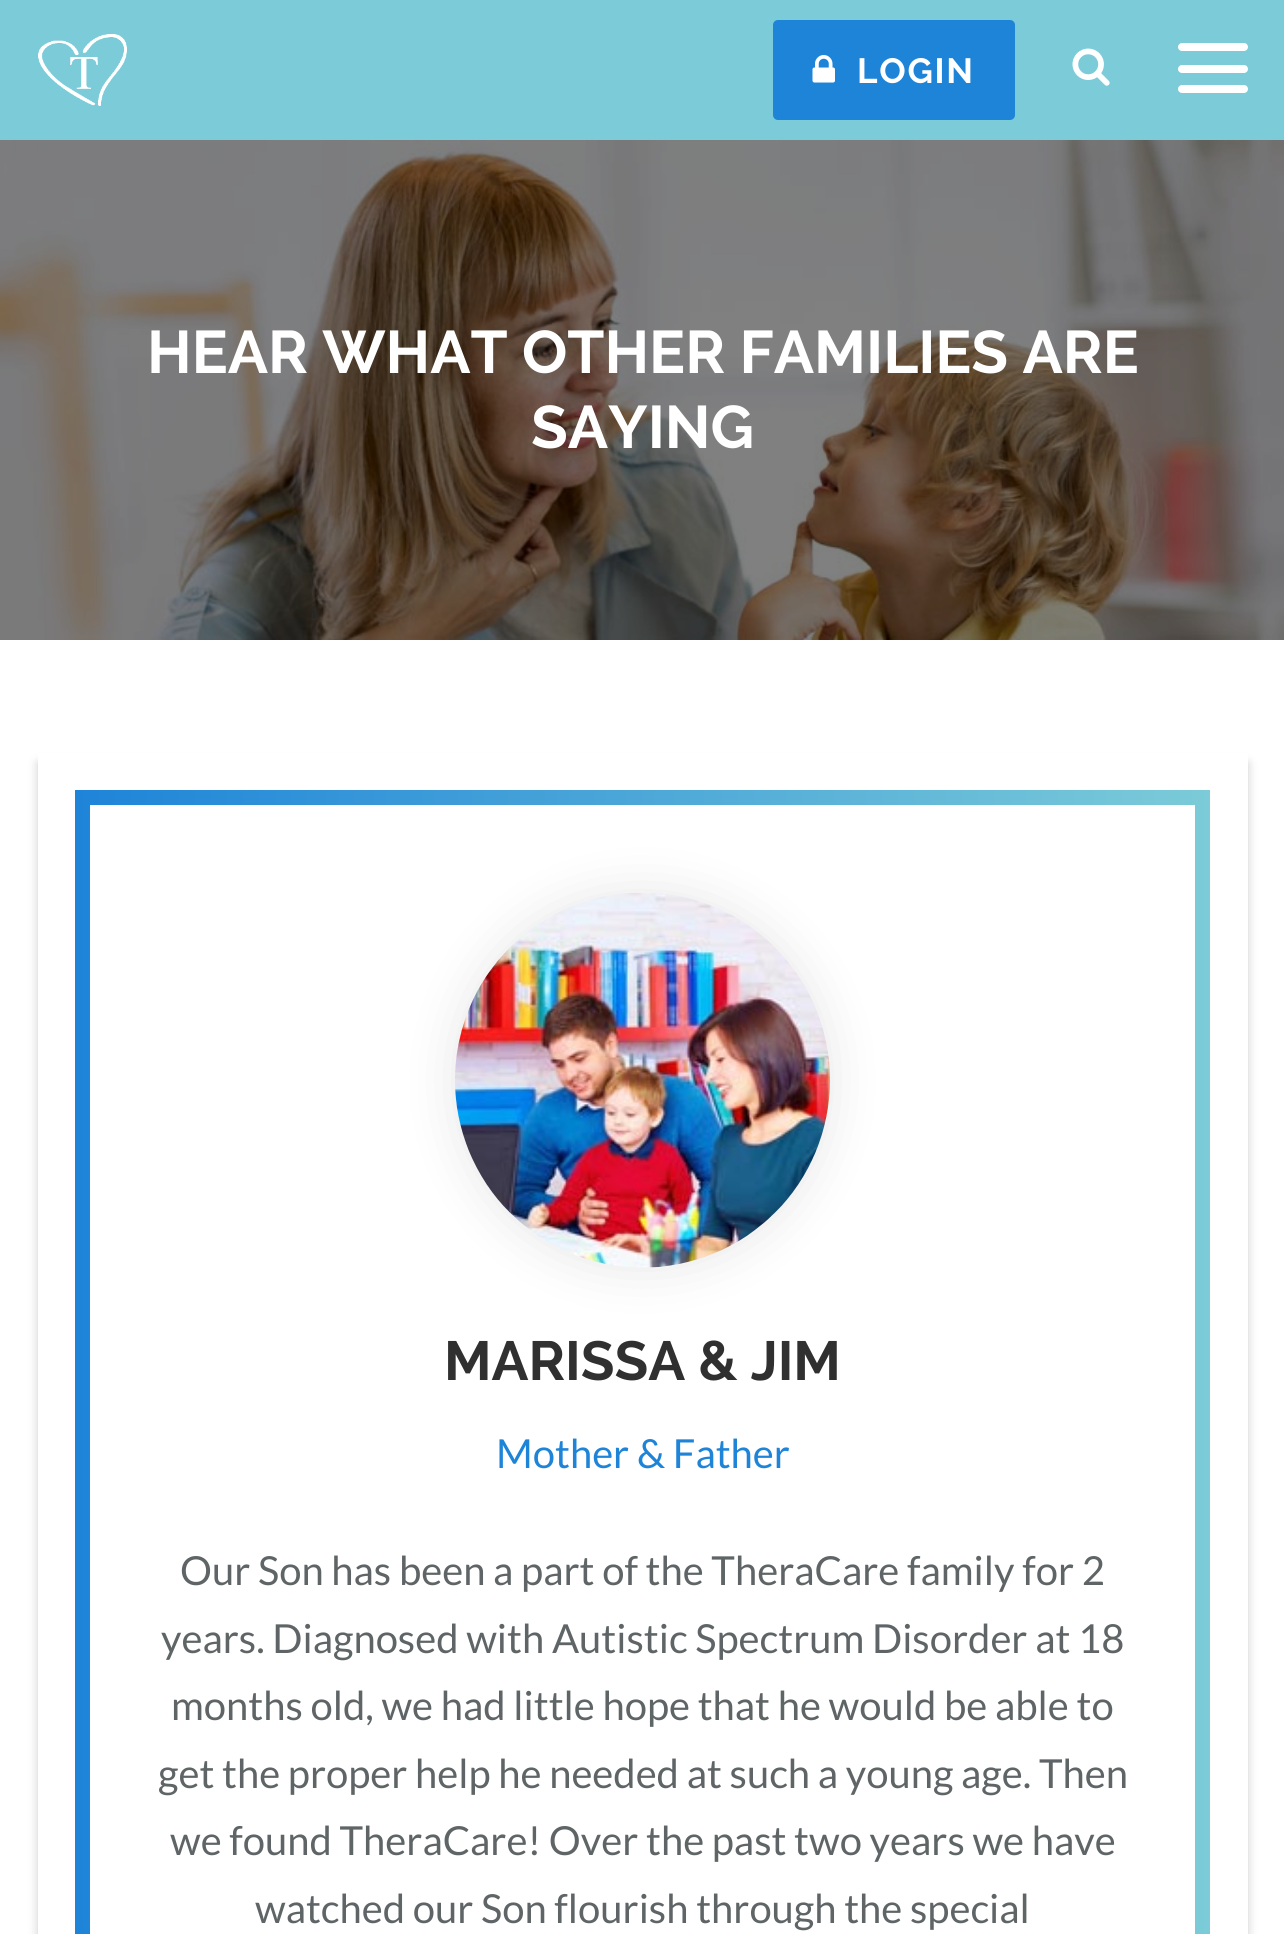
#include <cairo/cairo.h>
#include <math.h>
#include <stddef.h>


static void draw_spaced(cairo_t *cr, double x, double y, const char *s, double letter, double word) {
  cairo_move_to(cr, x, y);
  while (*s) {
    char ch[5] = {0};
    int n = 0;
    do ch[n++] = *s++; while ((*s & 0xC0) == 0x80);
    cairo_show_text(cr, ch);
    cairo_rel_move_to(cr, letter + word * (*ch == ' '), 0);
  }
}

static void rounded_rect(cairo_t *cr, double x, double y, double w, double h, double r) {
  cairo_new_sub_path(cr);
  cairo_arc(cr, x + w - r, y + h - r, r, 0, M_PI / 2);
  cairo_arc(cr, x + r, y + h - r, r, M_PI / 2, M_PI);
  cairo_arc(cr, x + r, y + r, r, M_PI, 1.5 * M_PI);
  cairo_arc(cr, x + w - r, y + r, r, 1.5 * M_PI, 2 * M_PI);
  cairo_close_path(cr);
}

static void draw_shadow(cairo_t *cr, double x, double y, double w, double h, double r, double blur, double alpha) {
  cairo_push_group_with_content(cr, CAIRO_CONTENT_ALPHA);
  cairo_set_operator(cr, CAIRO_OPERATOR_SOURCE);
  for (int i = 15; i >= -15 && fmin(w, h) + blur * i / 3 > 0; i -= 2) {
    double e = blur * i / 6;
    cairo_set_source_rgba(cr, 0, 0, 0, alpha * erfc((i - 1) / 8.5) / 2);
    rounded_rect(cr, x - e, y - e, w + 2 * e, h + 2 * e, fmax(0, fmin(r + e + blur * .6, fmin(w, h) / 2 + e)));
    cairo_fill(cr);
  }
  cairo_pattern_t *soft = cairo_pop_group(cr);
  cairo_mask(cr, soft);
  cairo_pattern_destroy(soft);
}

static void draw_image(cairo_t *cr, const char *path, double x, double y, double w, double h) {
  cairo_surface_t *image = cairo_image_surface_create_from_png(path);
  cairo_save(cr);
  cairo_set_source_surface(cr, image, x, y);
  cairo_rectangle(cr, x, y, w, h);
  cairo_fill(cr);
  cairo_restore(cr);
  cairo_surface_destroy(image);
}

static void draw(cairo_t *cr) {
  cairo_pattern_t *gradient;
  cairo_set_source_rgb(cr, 1, 1, 1);
  cairo_paint(cr);
  cairo_set_source_rgb(cr, 123 / 255.0, 203 / 255.0, 216 / 255.0);
  cairo_rectangle(cr, 0, 0, 1284, 140);
  cairo_fill(cr);
  draw_image(cr, "images/1.png", 38, 34, 89, 72);
  cairo_set_source_rgb(cr, 30 / 255.0, 132 / 255.0, 216 / 255.0);
  rounded_rect(cr, 773, 20, 242, 100, 5);
  cairo_fill(cr);
  draw_image(cr, "images/2.png", 812, 55, 23, 28);
  draw_image(cr, "images/3.png", 1072, 48, 38, 38);
  cairo_set_source_rgb(cr, 1, 1, 1);
  rounded_rect(cr, 1178, 43, 70, 8, 4);
  cairo_fill(cr);
  rounded_rect(cr, 1178, 65, 70, 8, 4);
  cairo_fill(cr);
  rounded_rect(cr, 1178, 85, 70, 8, 4);
  cairo_fill(cr);
  draw_image(cr, "images/4.png", 0, 140, 1284, 500);
  cairo_save(cr);
  cairo_set_fill_rule(cr, CAIRO_FILL_RULE_EVEN_ODD);
  cairo_new_path(cr);
  cairo_move_to(cr, 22, 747);
  cairo_line_to(cr, 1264, 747);
  cairo_line_to(cr, 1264, 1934);
  cairo_line_to(cr, 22, 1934);
  cairo_close_path(cr);
  cairo_move_to(cr, 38, 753);
  cairo_line_to(cr, 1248, 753);
  cairo_line_to(cr, 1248, 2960);
  cairo_line_to(cr, 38, 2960);
  cairo_close_path(cr);
  cairo_clip(cr);
  cairo_set_source_rgb(cr, 0, 0, 0);
  draw_shadow(cr, 38, 763, 1210, 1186, 0, 5, 0.2);
  cairo_restore(cr);
  gradient = cairo_pattern_create_linear(75, 1856, 1210, 1856);
  cairo_pattern_add_color_stop_rgba(gradient, 0, 30 / 255.0, 132 / 255.0, 216 / 255.0, 1);
  cairo_pattern_add_color_stop_rgba(gradient, 1, 123 / 255.0, 203 / 255.0, 216 / 255.0, 1);
  cairo_set_source(cr, gradient);
  cairo_pattern_destroy(gradient);
  cairo_rectangle(cr, 75, 790, 1135, 1144);
  cairo_fill(cr);
  cairo_set_source_rgb(cr, 1, 1, 1);
  cairo_rectangle(cr, 90, 805, 1105, 1129);
  cairo_fill(cr);
  cairo_set_source_rgb(cr, 0, 0, 0);
  draw_shadow(cr, 455, 893, 375, 375, 187.5, 25, 0.1);
  draw_image(cr, "images/5.png", 455, 893, 375, 375);
  cairo_select_font_face(cr, "Raleway", CAIRO_FONT_SLANT_NORMAL, CAIRO_FONT_WEIGHT_BOLD);
  cairo_set_font_size(cr, 35);
  cairo_set_source_rgb(cr, 1, 1, 1);
  draw_spaced(cr, 857, 83, "LOGIN", 1.75, 0);
  cairo_set_font_size(cr, 60);
  cairo_move_to(cr, 147, 373);
  cairo_show_text(cr, "HEAR WHAT OTHER FAMILIES ARE");
  cairo_move_to(cr, 531, 448);
  cairo_show_text(cr, "SAYING");
  cairo_set_font_size(cr, 55);
  cairo_set_source_rgb(cr, 49 / 255.0, 48 / 255.0, 48 / 255.0);
  cairo_move_to(cr, 444, 1380);
  cairo_show_text(cr, "MARISSA & JIM");
  cairo_select_font_face(cr, "Lato", CAIRO_FONT_SLANT_NORMAL, CAIRO_FONT_WEIGHT_NORMAL);
  cairo_set_font_size(cr, 40);
  cairo_set_source_rgb(cr, 30 / 255.0, 132 / 255.0, 216 / 255.0);
  cairo_move_to(cr, 496, 1468);
  cairo_show_text(cr, "Mother & Father");
  cairo_set_source_rgb(cr, 95 / 255.0, 101 / 255.0, 102 / 255.0);
  cairo_move_to(cr, 180, 1585);
  cairo_show_text(cr, "Our Son has been a part of the TheraCare family for 2");
  cairo_move_to(cr, 161, 1653);
  cairo_show_text(cr, "years. Diagnosed with Autistic Spectrum Disorder at 18");
  cairo_move_to(cr, 171, 1720);
  cairo_show_text(cr, "months old, we had little hope that he would be able to");
  cairo_move_to(cr, 158, 1788);
  cairo_show_text(cr, "get the proper help he needed at such a young age. Then");
  cairo_move_to(cr, 170, 1855);
  cairo_show_text(cr, "we found TheraCare! Over the past two years we have");
  cairo_move_to(cr, 255, 1923);
  cairo_show_text(cr, "watched our Son flourish through the special");
}

int main(void) {
  cairo_surface_t *surface = cairo_image_surface_create(CAIRO_FORMAT_RGB24, 1284, 1934);
  cairo_t *cr = cairo_create(surface);
  cairo_font_options_t *options = cairo_font_options_create();
  cairo_font_options_set_hint_metrics(options, CAIRO_HINT_METRICS_OFF);
  cairo_font_options_set_hint_style(options, CAIRO_HINT_STYLE_NONE);
  cairo_set_font_options(cr, options);
  cairo_set_miter_limit(cr, 4);
  draw(cr);
  cairo_surface_write_to_png(surface, "out.png");
  cairo_font_options_destroy(options);
  cairo_destroy(cr);
  cairo_surface_destroy(surface);
  return 0;
}
